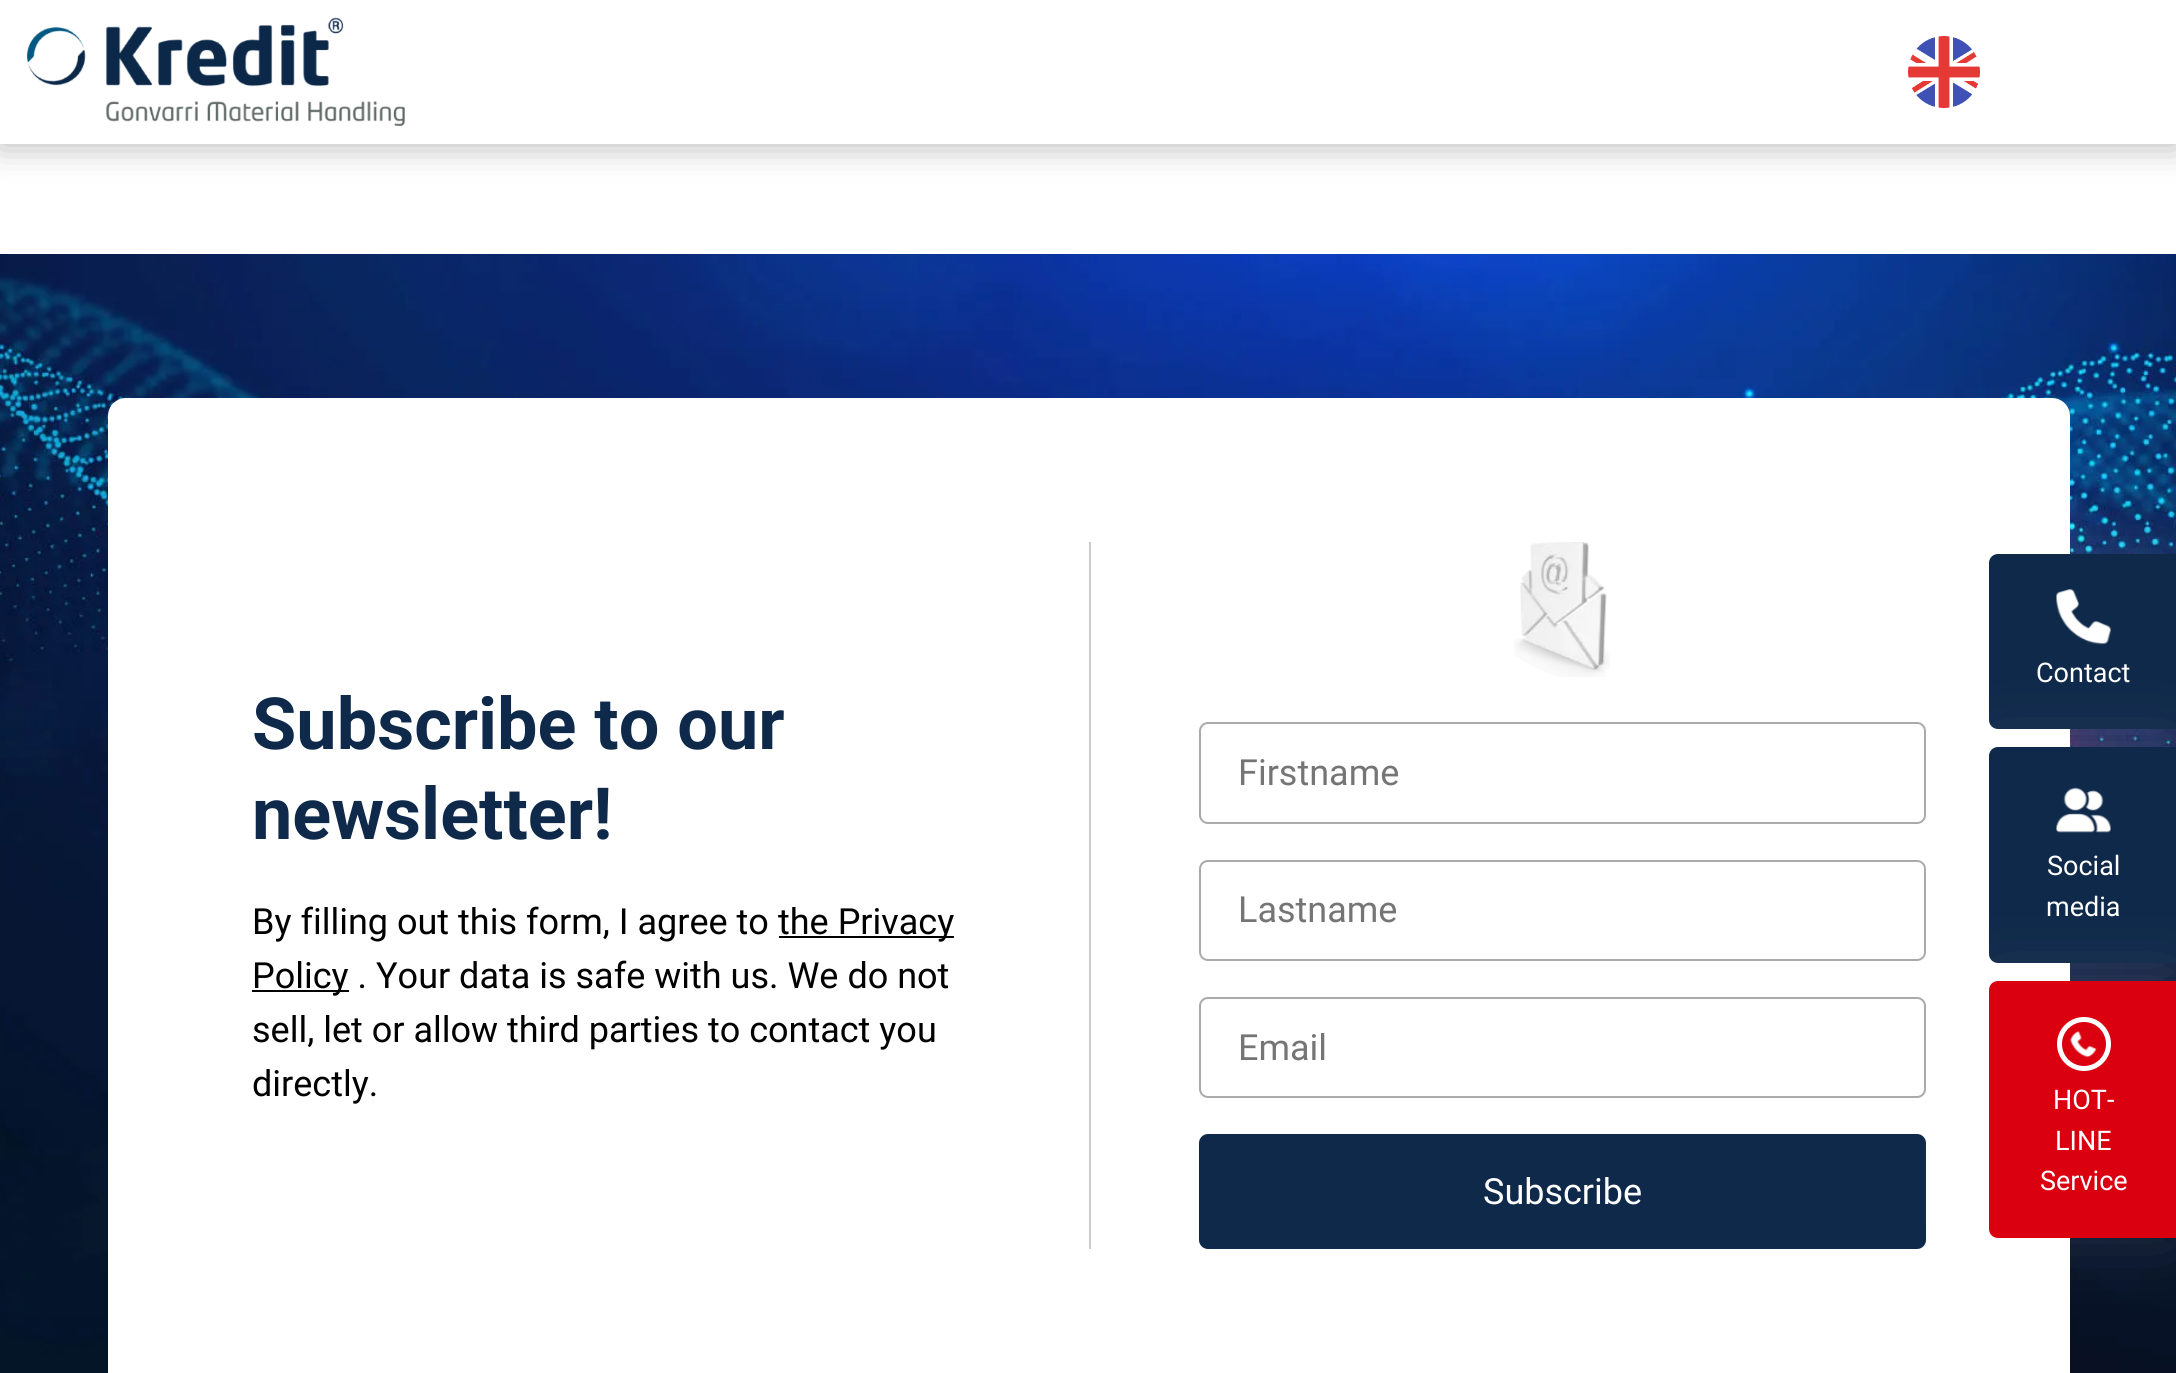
#include <cairo/cairo.h>
#include <math.h>
#include <stddef.h>


static void rounded_rect(cairo_t *cr, double x, double y, double w, double h, double r) {
  cairo_new_sub_path(cr);
  cairo_arc(cr, x + w - r, y + h - r, r, 0, M_PI / 2);
  cairo_arc(cr, x + r, y + h - r, r, M_PI / 2, M_PI);
  cairo_arc(cr, x + r, y + r, r, M_PI, 1.5 * M_PI);
  cairo_arc(cr, x + w - r, y + r, r, 1.5 * M_PI, 2 * M_PI);
  cairo_close_path(cr);
}

static void draw_shadow(cairo_t *cr, double x, double y, double w, double h, double r, double blur, double alpha) {
  cairo_push_group_with_content(cr, CAIRO_CONTENT_ALPHA);
  cairo_set_operator(cr, CAIRO_OPERATOR_SOURCE);
  for (int i = 15; i >= -15 && fmin(w, h) + blur * i / 3 > 0; i -= 2) {
    double e = blur * i / 6;
    cairo_set_source_rgba(cr, 0, 0, 0, alpha * erfc((i - 1) / 8.5) / 2);
    rounded_rect(cr, x - e, y - e, w + 2 * e, h + 2 * e, fmax(0, fmin(r + e + blur * .6, fmin(w, h) / 2 + e)));
    cairo_fill(cr);
  }
  cairo_pattern_t *soft = cairo_pop_group(cr);
  cairo_mask(cr, soft);
  cairo_pattern_destroy(soft);
}

static void draw_image(cairo_t *cr, const char *path, double x, double y, double w, double h) {
  cairo_surface_t *image = cairo_image_surface_create_from_png(path);
  cairo_save(cr);
  cairo_set_source_surface(cr, image, x, y);
  cairo_rectangle(cr, x, y, w, h);
  cairo_fill(cr);
  cairo_restore(cr);
  cairo_surface_destroy(image);
}

static void draw(cairo_t *cr) {
  cairo_set_source_rgb(cr, 1, 1, 1);
  cairo_paint(cr);
  cairo_set_source_rgb(cr, 0, 0, 0);
  draw_shadow(cr, 0, 0, 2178, 144, 0, 18, 0.31);
  cairo_set_source_rgb(cr, 1, 1, 1);
  cairo_rectangle(cr, 0, 0, 2176, 144);
  cairo_fill(cr);
  draw_image(cr, "images/1.png", 27, 17, 378, 110);
  draw_image(cr, "images/2.png", 1908, 36, 72, 72);
  draw_image(cr, "images/3.png", 0, 254, 2176, 1119);
  rounded_rect(cr, 108, 398, 1962, 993, 18);
  cairo_fill(cr);
  cairo_set_source_rgb(cr, 0, 0, 0);
  cairo_rectangle(cr, 779, 936, 175, 2);
  cairo_fill(cr);
  cairo_rectangle(cr, 252, 990, 97, 2);
  cairo_fill(cr);
  cairo_set_source_rgb(cr, 204 / 255.0, 204 / 255.0, 204 / 255.0);
  cairo_rectangle(cr, 1089, 542, 2, 707);
  cairo_fill(cr);
  draw_image(cr, "images/4.png", 1514, 542, 96, 135);
  rounded_rect(cr, 1200, 723, 725, 100, 8);
  cairo_set_source_rgb(cr, 170 / 255.0, 170 / 255.0, 170 / 255.0);
  cairo_stroke(cr);
  rounded_rect(cr, 1200, 861, 725, 99, 8);
  cairo_stroke(cr);
  rounded_rect(cr, 1200, 998, 725, 99, 8);
  cairo_stroke(cr);
  cairo_set_source_rgb(cr, 15 / 255.0, 41 / 255.0, 74 / 255.0);
  rounded_rect(cr, 1199, 1134, 727, 115, 9);
  cairo_fill(cr);
  cairo_set_source_rgb(cr, 1, 1, 1);
  draw_shadow(cr, 1989, 554, 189, 175, 9, 36, 0.12);
  cairo_set_source_rgb(cr, 15 / 255.0, 41 / 255.0, 74 / 255.0);
  cairo_new_path(cr);
  cairo_move_to(cr, 1998, 554);
  cairo_line_to(cr, 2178, 554);
  cairo_line_to(cr, 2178, 729);
  cairo_line_to(cr, 1998, 729);
  cairo_curve_to(cr, 1993, 729, 1989, 725, 1989, 720);
  cairo_line_to(cr, 1989, 563);
  cairo_curve_to(cr, 1989, 558, 1993, 554, 1998, 554);
  cairo_close_path(cr);
  cairo_fill(cr);
  draw_image(cr, "images/5.png", 2056, 589, 55, 56);
  cairo_set_source_rgb(cr, 1, 1, 1);
  draw_shadow(cr, 1989, 747, 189, 216, 9, 36, 0.12);
  cairo_set_source_rgb(cr, 15 / 255.0, 41 / 255.0, 74 / 255.0);
  cairo_new_path(cr);
  cairo_move_to(cr, 1998, 747);
  cairo_line_to(cr, 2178, 747);
  cairo_line_to(cr, 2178, 963);
  cairo_line_to(cr, 1998, 963);
  cairo_curve_to(cr, 1993, 963, 1989, 959, 1989, 954);
  cairo_line_to(cr, 1989, 756);
  cairo_curve_to(cr, 1989, 751, 1993, 747, 1998, 747);
  cairo_close_path(cr);
  cairo_fill(cr);
  draw_image(cr, "images/6.png", 2056, 787, 55, 46);
  cairo_set_source_rgb(cr, 1, 1, 1);
  draw_shadow(cr, 1989, 981, 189, 257, 9, 36, 0.12);
  cairo_set_source_rgb(cr, 219 / 255.0, 0, 15 / 255.0);
  cairo_new_path(cr);
  cairo_move_to(cr, 1998, 981);
  cairo_line_to(cr, 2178, 981);
  cairo_line_to(cr, 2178, 1238);
  cairo_line_to(cr, 1998, 1238);
  cairo_curve_to(cr, 1993, 1238, 1989, 1234, 1989, 1229);
  cairo_line_to(cr, 1989, 990);
  cairo_curve_to(cr, 1989, 985, 1993, 981, 1998, 981);
  cairo_close_path(cr);
  cairo_fill(cr);
  cairo_arc(cr, 2084, 1044, 24.5, 0, 2 * M_PI);
  cairo_set_source_rgb(cr, 1, 1, 1);
  cairo_set_line_width(cr, 5);
  cairo_stroke(cr);
  draw_image(cr, "images/7.png", 2070, 1031, 27, 27);
  cairo_select_font_face(cr, "Roboto", CAIRO_FONT_SLANT_NORMAL, CAIRO_FONT_WEIGHT_BOLD);
  cairo_set_font_size(cr, 72);
  cairo_set_source_rgb(cr, 15 / 255.0, 41 / 255.0, 74 / 255.0);
  cairo_move_to(cr, 252, 749);
  cairo_show_text(cr, "Subscribe to our");
  cairo_move_to(cr, 252, 839);
  cairo_show_text(cr, "newsletter!");
  cairo_select_font_face(cr, "Roboto", CAIRO_FONT_SLANT_NORMAL, CAIRO_FONT_WEIGHT_NORMAL);
  cairo_set_font_size(cr, 36);
  cairo_set_source_rgb(cr, 0, 0, 0);
  cairo_move_to(cr, 252, 934);
  cairo_show_text(cr, "By filling out this form, I agree to");
  cairo_move_to(cr, 778, 934);
  cairo_show_text(cr, "the Privacy");
  cairo_move_to(cr, 252, 988);
  cairo_show_text(cr, "Policy . Your data is safe with us. We do not");
  cairo_move_to(cr, 252, 1042);
  cairo_show_text(cr, "sell, let or allow third parties to contact you");
  cairo_move_to(cr, 252, 1096);
  cairo_show_text(cr, "directly.");
  cairo_set_source_rgb(cr, 117 / 255.0, 117 / 255.0, 117 / 255.0);
  cairo_move_to(cr, 1238, 785);
  cairo_show_text(cr, "Firstname");
  cairo_move_to(cr, 1238, 922);
  cairo_show_text(cr, "Lastname");
  cairo_move_to(cr, 1238, 1060);
  cairo_show_text(cr, "Email");
  cairo_set_source_rgb(cr, 1, 1, 1);
  cairo_move_to(cr, 1483, 1204);
  cairo_show_text(cr, "Subscribe");
  cairo_set_font_size(cr, 27);
  cairo_move_to(cr, 2036, 682);
  cairo_show_text(cr, "Contact");
  cairo_move_to(cr, 2047, 875);
  cairo_show_text(cr, "Social");
  cairo_move_to(cr, 2046, 916);
  cairo_show_text(cr, "media");
  cairo_move_to(cr, 2053, 1109);
  cairo_show_text(cr, "HOT-");
  cairo_move_to(cr, 2055, 1150);
  cairo_show_text(cr, "LINE");
  cairo_move_to(cr, 2040, 1190);
  cairo_show_text(cr, "Service");
}

int main(void) {
  cairo_surface_t *surface = cairo_image_surface_create(CAIRO_FORMAT_RGB24, 2176, 1373);
  cairo_t *cr = cairo_create(surface);
  cairo_font_options_t *options = cairo_font_options_create();
  cairo_font_options_set_hint_metrics(options, CAIRO_HINT_METRICS_OFF);
  cairo_font_options_set_hint_style(options, CAIRO_HINT_STYLE_NONE);
  cairo_set_font_options(cr, options);
  cairo_set_miter_limit(cr, 4);
  draw(cr);
  cairo_surface_write_to_png(surface, "out.png");
  cairo_font_options_destroy(options);
  cairo_destroy(cr);
  cairo_surface_destroy(surface);
  return 0;
}
